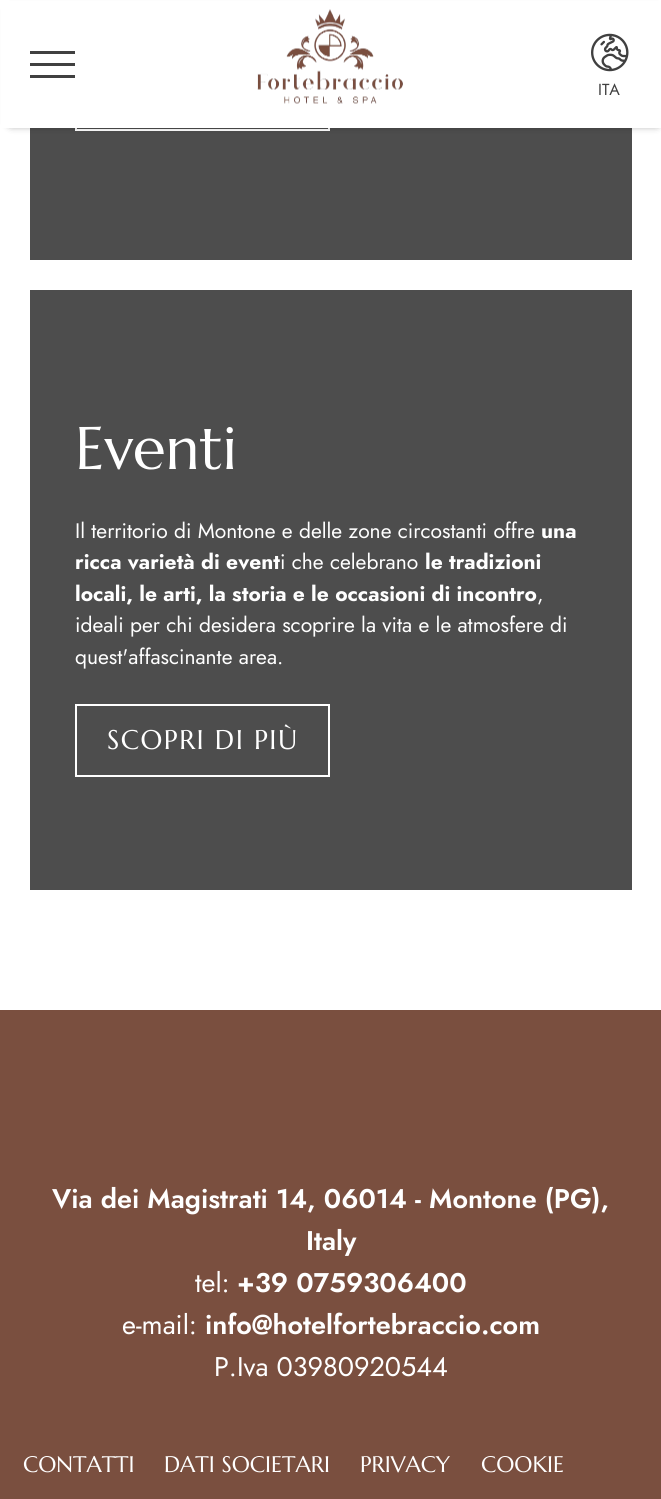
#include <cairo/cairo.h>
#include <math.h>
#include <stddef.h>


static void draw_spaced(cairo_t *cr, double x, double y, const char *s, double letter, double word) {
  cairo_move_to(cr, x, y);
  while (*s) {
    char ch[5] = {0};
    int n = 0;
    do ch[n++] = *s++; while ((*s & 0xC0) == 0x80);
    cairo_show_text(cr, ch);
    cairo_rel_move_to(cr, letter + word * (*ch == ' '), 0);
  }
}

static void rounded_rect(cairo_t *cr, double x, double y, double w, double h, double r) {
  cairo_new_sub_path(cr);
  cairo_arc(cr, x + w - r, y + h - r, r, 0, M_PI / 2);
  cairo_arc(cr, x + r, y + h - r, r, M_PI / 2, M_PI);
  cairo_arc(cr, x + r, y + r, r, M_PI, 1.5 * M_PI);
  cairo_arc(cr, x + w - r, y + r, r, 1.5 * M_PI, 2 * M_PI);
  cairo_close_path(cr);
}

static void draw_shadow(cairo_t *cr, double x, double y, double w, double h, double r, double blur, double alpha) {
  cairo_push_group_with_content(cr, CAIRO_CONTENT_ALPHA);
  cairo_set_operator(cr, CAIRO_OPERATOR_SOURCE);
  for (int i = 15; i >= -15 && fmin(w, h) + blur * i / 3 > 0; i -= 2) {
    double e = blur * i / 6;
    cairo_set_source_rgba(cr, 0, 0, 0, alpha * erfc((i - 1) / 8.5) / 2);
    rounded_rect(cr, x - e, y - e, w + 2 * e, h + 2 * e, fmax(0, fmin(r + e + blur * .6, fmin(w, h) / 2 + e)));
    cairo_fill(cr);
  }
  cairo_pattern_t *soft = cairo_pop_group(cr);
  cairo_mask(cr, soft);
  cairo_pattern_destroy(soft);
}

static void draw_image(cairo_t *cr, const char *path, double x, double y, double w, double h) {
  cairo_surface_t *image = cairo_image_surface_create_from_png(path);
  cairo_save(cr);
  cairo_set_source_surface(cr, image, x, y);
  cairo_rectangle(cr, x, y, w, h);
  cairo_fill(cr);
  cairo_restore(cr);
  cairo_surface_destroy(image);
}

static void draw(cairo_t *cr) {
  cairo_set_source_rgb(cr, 1, 1, 1);
  cairo_paint(cr);
  cairo_set_source_rgb(cr, 77 / 255.0, 77 / 255.0, 77 / 255.0);
  cairo_rectangle(cr, 30, 128, 602, 132);
  cairo_fill(cr);
  cairo_rectangle(cr, 76, 58, 253, 72);
  cairo_set_source_rgb(cr, 1, 1, 1);
  cairo_stroke(cr);
  cairo_set_source_rgb(cr, 0, 0, 0);
  draw_shadow(cr, 11, 11, 646, 112, 0, 4.5, 1);
  cairo_set_source_rgb(cr, 1, 1, 1);
  cairo_rectangle(cr, 1, 1, 660, 127);
  cairo_fill(cr);
  cairo_set_source_rgb(cr, 64 / 255.0, 64 / 255.0, 64 / 255.0);
  cairo_rectangle(cr, 30, 51, 45, 3);
  cairo_fill(cr);
  cairo_rectangle(cr, 30, 63, 45, 3);
  cairo_fill(cr);
  cairo_rectangle(cr, 30, 75, 45, 3);
  cairo_fill(cr);
  draw_image(cr, "images/1.png", 257, 9, 146, 95);
  draw_image(cr, "images/2.png", 591, 33, 38, 39);
  cairo_set_source_rgb(cr, 77 / 255.0, 77 / 255.0, 77 / 255.0);
  cairo_rectangle(cr, 30, 290, 602, 600);
  cairo_fill(cr);
  cairo_rectangle(cr, 76, 705, 253, 71);
  cairo_set_source_rgb(cr, 1, 1, 1);
  cairo_stroke(cr);
  cairo_set_source_rgb(cr, 122 / 255.0, 79 / 255.0, 63 / 255.0);
  cairo_rectangle(cr, 0, 1010, 661, 489);
  cairo_fill(cr);
  cairo_select_font_face(cr, "Jost", CAIRO_FONT_SLANT_NORMAL, CAIRO_FONT_WEIGHT_NORMAL);
  cairo_set_font_size(cr, 16);
  cairo_set_source_rgb(cr, 64 / 255.0, 64 / 255.0, 64 / 255.0);
  cairo_move_to(cr, 598, 95);
  cairo_show_text(cr, "ITA");
  cairo_select_font_face(cr, "Marcellus", CAIRO_FONT_SLANT_NORMAL, CAIRO_FONT_WEIGHT_NORMAL);
  cairo_set_font_size(cr, 60);
  cairo_set_source_rgb(cr, 1, 1, 1);
  cairo_move_to(cr, 75, 469);
  cairo_show_text(cr, "Eventi");
  cairo_select_font_face(cr, "Jost", CAIRO_FONT_SLANT_NORMAL, CAIRO_FONT_WEIGHT_NORMAL);
  cairo_set_font_size(cr, 21);
  cairo_move_to(cr, 75, 538);
  cairo_show_text(cr, "Il territorio di Montone e delle zone circostanti offre");
  cairo_select_font_face(cr, "Jost", CAIRO_FONT_SLANT_NORMAL, CAIRO_FONT_WEIGHT_BOLD);
  cairo_move_to(cr, 541, 538);
  cairo_show_text(cr, "una");
  cairo_move_to(cr, 75, 569);
  cairo_show_text(cr, "ricca varietà di event");
  cairo_select_font_face(cr, "Jost", CAIRO_FONT_SLANT_NORMAL, CAIRO_FONT_WEIGHT_NORMAL);
  cairo_move_to(cr, 280, 569);
  cairo_show_text(cr, "i che celebrano");
  cairo_select_font_face(cr, "Jost", CAIRO_FONT_SLANT_NORMAL, CAIRO_FONT_WEIGHT_BOLD);
  cairo_move_to(cr, 425, 569);
  cairo_show_text(cr, "le tradizioni");
  cairo_move_to(cr, 75, 601);
  cairo_show_text(cr, "locali, le arti, la storia e le occasioni di incontro");
  cairo_select_font_face(cr, "Jost", CAIRO_FONT_SLANT_NORMAL, CAIRO_FONT_WEIGHT_NORMAL);
  cairo_move_to(cr, 537, 601);
  cairo_show_text(cr, ",");
  cairo_move_to(cr, 75, 632);
  cairo_show_text(cr, "ideali per chi desidera scoprire la vita e le atmosfere di");
  cairo_move_to(cr, 75, 664);
  cairo_show_text(cr, "quest'affascinante area.");
  cairo_select_font_face(cr, "Marcellus", CAIRO_FONT_SLANT_NORMAL, CAIRO_FONT_WEIGHT_NORMAL);
  cairo_set_font_size(cr, 27);
  draw_spaced(cr, 107, 749, "SCOPRI DI PIÙ", 1.5, 0);
  cairo_select_font_face(cr, "Jost SemiBold", CAIRO_FONT_SLANT_NORMAL, CAIRO_FONT_WEIGHT_NORMAL);
  cairo_move_to(cr, 52, 1208);
  cairo_show_text(cr, "Via dei Magistrati 14, 06014 - Montone (PG),");
  cairo_move_to(cr, 306, 1250);
  cairo_show_text(cr, "Italy");
  cairo_select_font_face(cr, "Jost", CAIRO_FONT_SLANT_NORMAL, CAIRO_FONT_WEIGHT_NORMAL);
  cairo_move_to(cr, 195, 1292);
  cairo_show_text(cr, "tel:");
  cairo_select_font_face(cr, "Jost SemiBold", CAIRO_FONT_SLANT_NORMAL, CAIRO_FONT_WEIGHT_NORMAL);
  cairo_move_to(cr, 237, 1292);
  cairo_show_text(cr, "+39 0759306400");
  cairo_select_font_face(cr, "Jost", CAIRO_FONT_SLANT_NORMAL, CAIRO_FONT_WEIGHT_NORMAL);
  cairo_move_to(cr, 122, 1334);
  cairo_show_text(cr, "e-mail:");
  cairo_select_font_face(cr, "Jost SemiBold", CAIRO_FONT_SLANT_NORMAL, CAIRO_FONT_WEIGHT_NORMAL);
  cairo_move_to(cr, 205, 1334);
  cairo_show_text(cr, "info@hotelfortebraccio.com");
  cairo_select_font_face(cr, "Jost", CAIRO_FONT_SLANT_NORMAL, CAIRO_FONT_WEIGHT_NORMAL);
  cairo_move_to(cr, 214, 1376);
  cairo_show_text(cr, "P.Iva 03980920544");
  cairo_select_font_face(cr, "Marcellus", CAIRO_FONT_SLANT_NORMAL, CAIRO_FONT_WEIGHT_NORMAL);
  cairo_set_font_size(cr, 22.5);
  cairo_move_to(cr, 23, 1472);
  cairo_show_text(cr, "CONTATTI");
  cairo_move_to(cr, 164, 1472);
  cairo_show_text(cr, "DATI SOCIETARI");
  cairo_move_to(cr, 360, 1472);
  cairo_show_text(cr, "PRIVACY");
  cairo_move_to(cr, 481, 1472);
  cairo_show_text(cr, "COOKIE");
}

int main(void) {
  cairo_surface_t *surface = cairo_image_surface_create(CAIRO_FORMAT_RGB24, 661, 1499);
  cairo_t *cr = cairo_create(surface);
  cairo_font_options_t *options = cairo_font_options_create();
  cairo_font_options_set_hint_metrics(options, CAIRO_HINT_METRICS_OFF);
  cairo_font_options_set_hint_style(options, CAIRO_HINT_STYLE_NONE);
  cairo_set_font_options(cr, options);
  cairo_set_miter_limit(cr, 4);
  draw(cr);
  cairo_surface_write_to_png(surface, "out.png");
  cairo_font_options_destroy(options);
  cairo_destroy(cr);
  cairo_surface_destroy(surface);
  return 0;
}
